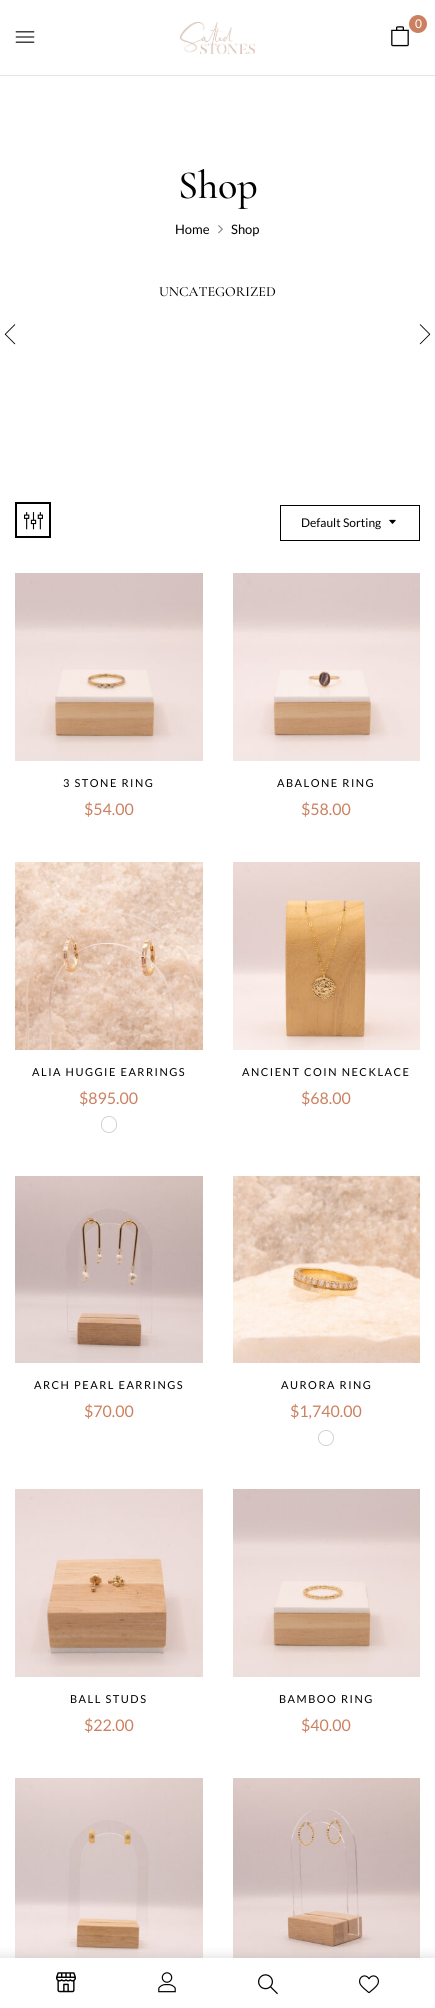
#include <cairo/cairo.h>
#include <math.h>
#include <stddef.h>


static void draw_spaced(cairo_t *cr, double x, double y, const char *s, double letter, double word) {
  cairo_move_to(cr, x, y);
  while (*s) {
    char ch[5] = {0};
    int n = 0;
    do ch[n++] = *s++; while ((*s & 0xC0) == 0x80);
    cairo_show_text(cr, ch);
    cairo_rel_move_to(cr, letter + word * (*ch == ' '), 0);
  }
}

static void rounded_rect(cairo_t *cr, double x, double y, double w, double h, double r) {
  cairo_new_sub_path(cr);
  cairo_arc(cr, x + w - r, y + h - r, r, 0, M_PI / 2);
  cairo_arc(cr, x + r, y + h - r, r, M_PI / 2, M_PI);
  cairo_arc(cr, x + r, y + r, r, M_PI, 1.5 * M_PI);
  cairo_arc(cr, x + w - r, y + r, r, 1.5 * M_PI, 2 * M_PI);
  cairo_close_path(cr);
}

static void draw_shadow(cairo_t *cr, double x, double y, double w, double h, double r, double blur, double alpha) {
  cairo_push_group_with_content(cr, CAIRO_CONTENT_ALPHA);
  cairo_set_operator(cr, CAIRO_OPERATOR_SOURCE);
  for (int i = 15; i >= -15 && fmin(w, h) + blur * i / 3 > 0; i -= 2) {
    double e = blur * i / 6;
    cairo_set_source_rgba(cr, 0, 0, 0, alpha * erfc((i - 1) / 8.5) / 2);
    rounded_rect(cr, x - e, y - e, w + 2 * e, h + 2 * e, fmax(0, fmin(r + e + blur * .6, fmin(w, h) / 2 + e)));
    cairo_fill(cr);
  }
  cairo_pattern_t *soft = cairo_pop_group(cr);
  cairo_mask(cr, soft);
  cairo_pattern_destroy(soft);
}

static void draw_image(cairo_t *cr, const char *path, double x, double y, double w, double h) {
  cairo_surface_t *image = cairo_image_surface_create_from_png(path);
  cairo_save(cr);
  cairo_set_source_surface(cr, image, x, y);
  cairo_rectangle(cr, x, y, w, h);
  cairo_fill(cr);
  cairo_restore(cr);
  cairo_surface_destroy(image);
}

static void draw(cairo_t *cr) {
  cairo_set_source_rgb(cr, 1, 1, 1);
  cairo_paint(cr);
  cairo_set_source_rgb(cr, 229 / 255.0, 229 / 255.0, 229 / 255.0);
  cairo_rectangle(cr, 0, 75, 435, 1);
  cairo_fill(cr);
  draw_image(cr, "images/1.png", 15, 31, 20, 12);
  draw_image(cr, "images/2.png", 180, 22, 75, 32);
  cairo_set_source_rgb(cr, 203 / 255.0, 129 / 255.0, 97 / 255.0);
  cairo_arc(cr, 418, 24, 9, 0, 2 * M_PI);
  cairo_fill(cr);
  draw_image(cr, "images/3.png", 391, 26, 18, 21);
  draw_image(cr, "images/21.png", 15, 1778, 188, 180);
  draw_image(cr, "images/22.png", 233, 1778, 187, 180);
  cairo_set_source_rgb(cr, 143 / 255.0, 143 / 255.0, 143 / 255.0);
  draw_shadow(cr, -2, 1957, 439, 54, 0, 6, 0.3);
  cairo_set_source_rgb(cr, 1, 1, 1);
  cairo_rectangle(cr, 0, 1958, 435, 50);
  cairo_fill(cr);
  draw_image(cr, "images/4.png", 56, 1972, 20, 21);
  draw_image(cr, "images/5.png", 158, 1972, 18, 21);
  draw_image(cr, "images/6.png", 258, 1974, 20, 21);
  draw_image(cr, "images/7.png", 359, 1975, 20, 19);
  draw_image(cr, "images/8.png", 218, 225, 5, 9);
  draw_image(cr, "images/9.png", 4, 324, 12, 21);
  draw_image(cr, "images/10.png", 419, 324, 12, 21);
  cairo_rectangle(cr, 16, 503, 34, 34);
  cairo_set_source_rgb(cr, 0, 0, 0);
  cairo_stroke(cr);
  draw_image(cr, "images/11.png", 24, 512, 19, 18);
  cairo_rectangle(cr, 280.5, 505.5, 139, 35);
  cairo_set_line_width(cr, 1);
  cairo_stroke(cr);
  draw_image(cr, "images/12.png", 389, 519, 7, 5);
  draw_image(cr, "images/13.png", 15, 573, 188, 188);
  draw_image(cr, "images/14.png", 233, 573, 187, 188);
  draw_image(cr, "images/15.png", 15, 862, 188, 188);
  rounded_rect(cr, 101.45, 1116.45, 15.1, 16.1, 7.55);
  cairo_set_source_rgb(cr, 207 / 255.0, 207 / 255.0, 207 / 255.0);
  cairo_set_line_width(cr, 0.9);
  cairo_stroke(cr);
  draw_image(cr, "images/16.png", 233, 862, 187, 188);
  draw_image(cr, "images/17.png", 15, 1176, 188, 187);
  draw_image(cr, "images/18.png", 233, 1176, 187, 187);
  cairo_arc(cr, 326, 1438, 7.55, 0, 2 * M_PI);
  cairo_stroke(cr);
  draw_image(cr, "images/19.png", 15, 1489, 188, 188);
  draw_image(cr, "images/20.png", 233, 1489, 187, 188);
  cairo_select_font_face(cr, "Lato", CAIRO_FONT_SLANT_NORMAL, CAIRO_FONT_WEIGHT_NORMAL);
  cairo_set_font_size(cr, 12);
  cairo_set_source_rgb(cr, 1, 1, 1);
  cairo_move_to(cr, 415, 28);
  cairo_show_text(cr, "0");
  cairo_select_font_face(cr, "Cormorant Garamond Medium", CAIRO_FONT_SLANT_NORMAL, CAIRO_FONT_WEIGHT_NORMAL);
  cairo_set_font_size(cr, 40);
  cairo_set_source_rgb(cr, 0, 0, 0);
  cairo_move_to(cr, 178, 198);
  cairo_show_text(cr, "Shop");
  cairo_select_font_face(cr, "Lato", CAIRO_FONT_SLANT_NORMAL, CAIRO_FONT_WEIGHT_NORMAL);
  cairo_set_font_size(cr, 13);
  cairo_move_to(cr, 175, 234);
  cairo_show_text(cr, "Home");
  cairo_move_to(cr, 231, 234);
  cairo_show_text(cr, "Shop");
  cairo_select_font_face(cr, "Cormorant Garamond Medium", CAIRO_FONT_SLANT_NORMAL, CAIRO_FONT_WEIGHT_NORMAL);
  cairo_set_font_size(cr, 14);
  cairo_move_to(cr, 159, 296);
  cairo_show_text(cr, "UNCATEGORIZED");
  cairo_select_font_face(cr, "Lato", CAIRO_FONT_SLANT_NORMAL, CAIRO_FONT_WEIGHT_NORMAL);
  cairo_set_font_size(cr, 12);
  cairo_move_to(cr, 301, 527);
  cairo_show_text(cr, "Default Sorting");
  cairo_set_font_size(cr, 11);
  draw_spaced(cr, 63, 787, "3 STONE RING", 1.5, 0);
  cairo_set_font_size(cr, 16);
  cairo_set_source_rgb(cr, 203 / 255.0, 129 / 255.0, 97 / 255.0);
  cairo_move_to(cr, 84, 815);
  cairo_show_text(cr, "$54.00");
  cairo_set_font_size(cr, 11);
  cairo_set_source_rgb(cr, 0, 0, 0);
  draw_spaced(cr, 277, 787, "ABALONE RING", 1.5, 0);
  cairo_set_font_size(cr, 16);
  cairo_set_source_rgb(cr, 203 / 255.0, 129 / 255.0, 97 / 255.0);
  cairo_move_to(cr, 301, 815);
  cairo_show_text(cr, "$58.00");
  cairo_set_font_size(cr, 11);
  cairo_set_source_rgb(cr, 0, 0, 0);
  draw_spaced(cr, 32, 1076, "ALIA HUGGIE EARRINGS", 1.5, 0);
  cairo_set_font_size(cr, 16);
  cairo_set_source_rgb(cr, 203 / 255.0, 129 / 255.0, 97 / 255.0);
  cairo_move_to(cr, 79, 1104);
  cairo_show_text(cr, "$895.00");
  cairo_set_font_size(cr, 11);
  cairo_set_source_rgb(cr, 0, 0, 0);
  draw_spaced(cr, 242, 1076, "ANCIENT COIN NECKLACE", 1.5, 0);
  cairo_set_font_size(cr, 16);
  cairo_set_source_rgb(cr, 203 / 255.0, 129 / 255.0, 97 / 255.0);
  cairo_move_to(cr, 301, 1104);
  cairo_show_text(cr, "$68.00");
  cairo_set_font_size(cr, 11);
  cairo_set_source_rgb(cr, 0, 0, 0);
  draw_spaced(cr, 34, 1389, "ARCH PEARL EARRINGS", 1.5, 0);
  cairo_set_font_size(cr, 16);
  cairo_set_source_rgb(cr, 203 / 255.0, 129 / 255.0, 97 / 255.0);
  cairo_move_to(cr, 84, 1417);
  cairo_show_text(cr, "$70.00");
  cairo_set_font_size(cr, 11);
  cairo_set_source_rgb(cr, 0, 0, 0);
  draw_spaced(cr, 281, 1389, "AURORA RING", 1.5, 0);
  cairo_set_font_size(cr, 16);
  cairo_set_source_rgb(cr, 203 / 255.0, 129 / 255.0, 97 / 255.0);
  cairo_move_to(cr, 290, 1417);
  cairo_show_text(cr, "$1,740.00");
  cairo_set_font_size(cr, 11);
  cairo_set_source_rgb(cr, 0, 0, 0);
  draw_spaced(cr, 70, 1703, "BALL STUDS", 1.5, 0);
  cairo_set_font_size(cr, 16);
  cairo_set_source_rgb(cr, 203 / 255.0, 129 / 255.0, 97 / 255.0);
  cairo_move_to(cr, 84, 1731);
  cairo_show_text(cr, "$22.00");
  cairo_set_font_size(cr, 11);
  cairo_set_source_rgb(cr, 0, 0, 0);
  draw_spaced(cr, 279, 1703, "BAMBOO RING", 1.5, 0);
  cairo_set_font_size(cr, 16);
  cairo_set_source_rgb(cr, 203 / 255.0, 129 / 255.0, 97 / 255.0);
  cairo_move_to(cr, 301, 1731);
  cairo_show_text(cr, "$40.00");
}

int main(void) {
  cairo_surface_t *surface = cairo_image_surface_create(CAIRO_FORMAT_RGB24, 435, 2008);
  cairo_t *cr = cairo_create(surface);
  cairo_font_options_t *options = cairo_font_options_create();
  cairo_font_options_set_hint_metrics(options, CAIRO_HINT_METRICS_OFF);
  cairo_font_options_set_hint_style(options, CAIRO_HINT_STYLE_NONE);
  cairo_set_font_options(cr, options);
  cairo_set_miter_limit(cr, 4);
  draw(cr);
  cairo_surface_write_to_png(surface, "out.png");
  cairo_font_options_destroy(options);
  cairo_destroy(cr);
  cairo_surface_destroy(surface);
  return 0;
}
